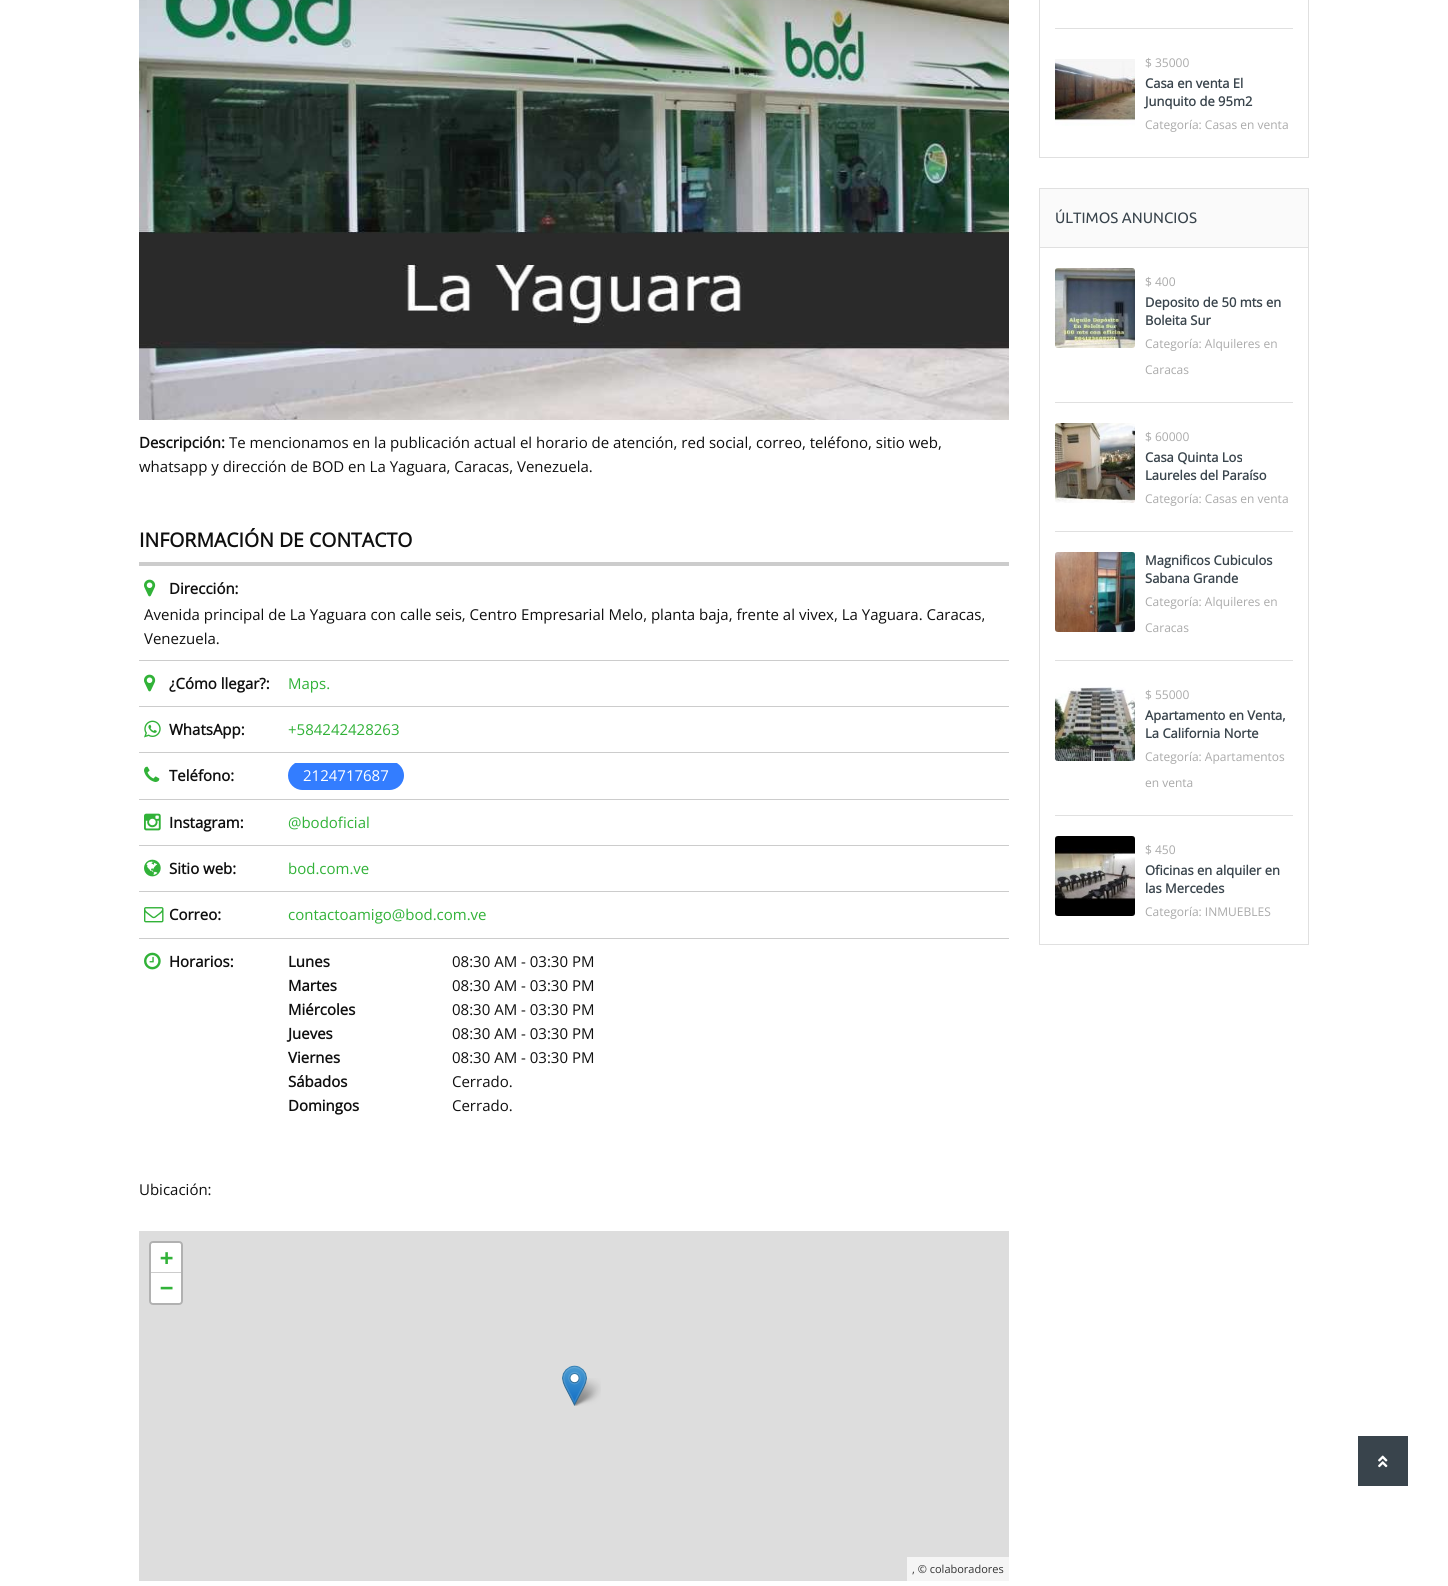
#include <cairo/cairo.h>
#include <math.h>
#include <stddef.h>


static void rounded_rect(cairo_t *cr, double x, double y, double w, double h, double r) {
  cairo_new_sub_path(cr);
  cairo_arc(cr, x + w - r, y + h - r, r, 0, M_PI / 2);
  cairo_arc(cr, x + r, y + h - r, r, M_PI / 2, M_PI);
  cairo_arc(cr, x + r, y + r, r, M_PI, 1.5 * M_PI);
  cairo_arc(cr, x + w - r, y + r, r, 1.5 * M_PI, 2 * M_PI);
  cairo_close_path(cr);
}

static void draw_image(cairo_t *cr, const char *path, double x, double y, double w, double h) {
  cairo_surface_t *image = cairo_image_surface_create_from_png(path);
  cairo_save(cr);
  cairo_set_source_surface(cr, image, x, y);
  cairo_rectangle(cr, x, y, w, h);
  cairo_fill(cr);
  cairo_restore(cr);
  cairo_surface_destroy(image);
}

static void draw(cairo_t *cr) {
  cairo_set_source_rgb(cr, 1, 1, 1);
  cairo_paint(cr);
  draw_image(cr, "images/1.png", 139, 0, 870, 420);
  cairo_set_source_rgb(cr, 204 / 255.0, 204 / 255.0, 204 / 255.0);
  cairo_rectangle(cr, 139, 562, 870, 4);
  cairo_fill(cr);
  cairo_rectangle(cr, 139, 660, 870, 1);
  cairo_fill(cr);
  draw_image(cr, "images/2.png", 144, 579, 12, 18);
  cairo_rectangle(cr, 139, 706, 870, 1);
  cairo_fill(cr);
  draw_image(cr, "images/2.png", 144, 674, 12, 18);
  cairo_rectangle(cr, 139, 752, 870, 1);
  cairo_fill(cr);
  draw_image(cr, "images/3.png", 144, 720, 17, 18);
  cairo_rectangle(cr, 139, 799, 870, 1);
  cairo_fill(cr);
  draw_image(cr, "images/4.png", 144, 766, 16, 16);
  cairo_save(cr);
  cairo_rectangle(cr, 139, 763, 870, 36);
  cairo_clip(cr);
  cairo_set_source_rgb(cr, 51 / 255.0, 125 / 255.0, 1);
  rounded_rect(cr, 288, 761, 116, 29, 14.5);
  cairo_fill(cr);
  cairo_restore(cr);
  cairo_rectangle(cr, 139, 845, 870, 1);
  cairo_fill(cr);
  draw_image(cr, "images/5.png", 144, 813, 17, 18);
  cairo_rectangle(cr, 139, 891, 870, 1);
  cairo_fill(cr);
  draw_image(cr, "images/6.png", 144, 859, 17, 18);
  cairo_rectangle(cr, 139, 938, 870, 1);
  cairo_fill(cr);
  draw_image(cr, "images/7.png", 144, 907, 20, 16);
  draw_image(cr, "images/8.png", 144, 952, 17, 18);
  cairo_set_source_rgb(cr, 221 / 255.0, 221 / 255.0, 221 / 255.0);
  cairo_rectangle(cr, 139, 1231, 870, 350);
  cairo_fill(cr);
  rounded_rect(cr, 150, 1242, 32, 62, 3);
  cairo_set_source_rgb(cr, 177 / 255.0, 177 / 255.0, 177 / 255.0);
  cairo_stroke(cr);
  cairo_set_source_rgb(cr, 1, 1, 1);
  cairo_new_path(cr);
  cairo_move_to(cr, 153, 1243);
  cairo_line_to(cr, 179, 1243);
  cairo_curve_to(cr, 180, 1243, 181, 1244, 181, 1245);
  cairo_line_to(cr, 181, 1273);
  cairo_line_to(cr, 151, 1273);
  cairo_line_to(cr, 151, 1245);
  cairo_curve_to(cr, 151, 1244, 152, 1243, 153, 1243);
  cairo_close_path(cr);
  cairo_fill(cr);
  cairo_set_source_rgb(cr, 204 / 255.0, 204 / 255.0, 204 / 255.0);
  cairo_rectangle(cr, 151, 1272, 30, 1);
  cairo_fill(cr);
  cairo_set_source_rgb(cr, 1, 1, 1);
  cairo_new_path(cr);
  cairo_move_to(cr, 151, 1273);
  cairo_line_to(cr, 181, 1273);
  cairo_line_to(cr, 181, 1301);
  cairo_curve_to(cr, 181, 1302, 180, 1303, 179, 1303);
  cairo_line_to(cr, 153, 1303);
  cairo_curve_to(cr, 152, 1303, 151, 1302, 151, 1301);
  cairo_close_path(cr);
  cairo_fill(cr);
  cairo_set_source_rgb(cr, 245 / 255.0, 245 / 255.0, 245 / 255.0);
  cairo_rectangle(cr, 907, 1557, 102, 24);
  cairo_fill(cr);
  draw_image(cr, "images/10.png", 572, 1378, 29, 28);
  draw_image(cr, "images/9.png", 562, 1365, 25, 41);
  cairo_rectangle(cr, 1039.5, -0.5, 269, 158);
  cairo_set_source_rgb(cr, 224 / 255.0, 224 / 255.0, 224 / 255.0);
  cairo_set_line_width(cr, 1);
  cairo_stroke(cr);
  cairo_rectangle(cr, 1055, 28, 238, 1);
  cairo_fill(cr);
  draw_image(cr, "images/11.png", 1055, 59, 80, 67);
  cairo_rectangle(cr, 1039.5, 188.5, 269, 756);
  cairo_stroke(cr);
  cairo_set_source_rgb(cr, 250 / 255.0, 250 / 255.0, 250 / 255.0);
  cairo_rectangle(cr, 1040, 189, 268, 58);
  cairo_fill(cr);
  cairo_set_source_rgb(cr, 224 / 255.0, 224 / 255.0, 224 / 255.0);
  cairo_rectangle(cr, 1040, 247, 268, 1);
  cairo_fill(cr);
  cairo_rectangle(cr, 1055, 402, 238, 1);
  cairo_fill(cr);
  draw_image(cr, "images/12.png", 1055, 268, 80, 80);
  cairo_rectangle(cr, 1055, 531, 238, 1);
  cairo_fill(cr);
  draw_image(cr, "images/13.png", 1055, 423, 80, 80);
  cairo_rectangle(cr, 1055, 660, 238, 1);
  cairo_fill(cr);
  draw_image(cr, "images/14.png", 1055, 552, 80, 80);
  cairo_rectangle(cr, 1055, 815, 238, 1);
  cairo_fill(cr);
  draw_image(cr, "images/15.png", 1055, 687, 80, 74);
  draw_image(cr, "images/16.png", 1055, 836, 80, 80);
  cairo_set_source_rgb(cr, 57 / 255.0, 68 / 255.0, 76 / 255.0);
  cairo_rectangle(cr, 1358, 1436, 50, 50);
  cairo_fill(cr);
  draw_image(cr, "images/17.png", 1378, 1455, 10, 13);
  cairo_select_font_face(cr, "Open Sans", CAIRO_FONT_SLANT_NORMAL, CAIRO_FONT_WEIGHT_BOLD);
  cairo_set_font_size(cr, 15);
  cairo_set_source_rgb(cr, 15 / 255.0, 15 / 255.0, 15 / 255.0);
  cairo_move_to(cr, 139, 448);
  cairo_show_text(cr, "Descripción:");
  cairo_select_font_face(cr, "Open Sans", CAIRO_FONT_SLANT_NORMAL, CAIRO_FONT_WEIGHT_NORMAL);
  cairo_move_to(cr, 229, 448);
  cairo_show_text(cr, "Te mencionamos en la publicación actual el horario de atención, red social, correo, teléfono, sitio web,");
  cairo_move_to(cr, 139, 472);
  cairo_show_text(cr, "whatsapp y dirección de BOD en La Yaguara, Caracas, Venezuela.");
  cairo_select_font_face(cr, "Open Sans", CAIRO_FONT_SLANT_NORMAL, CAIRO_FONT_WEIGHT_BOLD);
  cairo_set_font_size(cr, 19.5);
  cairo_move_to(cr, 139, 547);
  cairo_show_text(cr, "INFORMACIÓN DE CONTACTO");
  cairo_set_font_size(cr, 15);
  cairo_move_to(cr, 169, 594);
  cairo_show_text(cr, "Dirección:");
  cairo_select_font_face(cr, "Open Sans", CAIRO_FONT_SLANT_NORMAL, CAIRO_FONT_WEIGHT_NORMAL);
  cairo_move_to(cr, 144, 620);
  cairo_show_text(cr, "Avenida principal de La Yaguara con calle seis, Centro Empresarial Melo, planta baja, frente al vivex, La Yaguara. Caracas,");
  cairo_move_to(cr, 144, 644);
  cairo_show_text(cr, "Venezuela.");
  cairo_select_font_face(cr, "Open Sans", CAIRO_FONT_SLANT_NORMAL, CAIRO_FONT_WEIGHT_BOLD);
  cairo_move_to(cr, 169, 689);
  cairo_show_text(cr, "¿Cómo llegar?:");
  cairo_select_font_face(cr, "Open Sans", CAIRO_FONT_SLANT_NORMAL, CAIRO_FONT_WEIGHT_NORMAL);
  cairo_set_source_rgb(cr, 49 / 255.0, 178 / 255.0, 56 / 255.0);
  cairo_move_to(cr, 288, 689);
  cairo_show_text(cr, "Maps.");
  cairo_select_font_face(cr, "Open Sans", CAIRO_FONT_SLANT_NORMAL, CAIRO_FONT_WEIGHT_BOLD);
  cairo_set_source_rgb(cr, 15 / 255.0, 15 / 255.0, 15 / 255.0);
  cairo_move_to(cr, 169, 735);
  cairo_show_text(cr, "WhatsApp:");
  cairo_select_font_face(cr, "Open Sans", CAIRO_FONT_SLANT_NORMAL, CAIRO_FONT_WEIGHT_NORMAL);
  cairo_set_source_rgb(cr, 49 / 255.0, 178 / 255.0, 56 / 255.0);
  cairo_move_to(cr, 288, 735);
  cairo_show_text(cr, "+584242428263");
  cairo_select_font_face(cr, "Open Sans", CAIRO_FONT_SLANT_NORMAL, CAIRO_FONT_WEIGHT_BOLD);
  cairo_set_source_rgb(cr, 15 / 255.0, 15 / 255.0, 15 / 255.0);
  cairo_move_to(cr, 169, 781);
  cairo_show_text(cr, "Teléfono:");
  cairo_select_font_face(cr, "Open Sans", CAIRO_FONT_SLANT_NORMAL, CAIRO_FONT_WEIGHT_NORMAL);
  cairo_set_source_rgb(cr, 1, 1, 1);
  cairo_move_to(cr, 303, 781);
  cairo_show_text(cr, "2124717687");
  cairo_select_font_face(cr, "Open Sans", CAIRO_FONT_SLANT_NORMAL, CAIRO_FONT_WEIGHT_BOLD);
  cairo_set_source_rgb(cr, 15 / 255.0, 15 / 255.0, 15 / 255.0);
  cairo_move_to(cr, 169, 828);
  cairo_show_text(cr, "Instagram:");
  cairo_select_font_face(cr, "Open Sans", CAIRO_FONT_SLANT_NORMAL, CAIRO_FONT_WEIGHT_NORMAL);
  cairo_set_source_rgb(cr, 49 / 255.0, 178 / 255.0, 56 / 255.0);
  cairo_move_to(cr, 288, 828);
  cairo_show_text(cr, "@bodoficial");
  cairo_select_font_face(cr, "Open Sans", CAIRO_FONT_SLANT_NORMAL, CAIRO_FONT_WEIGHT_BOLD);
  cairo_set_source_rgb(cr, 15 / 255.0, 15 / 255.0, 15 / 255.0);
  cairo_move_to(cr, 169, 874);
  cairo_show_text(cr, "Sitio web:");
  cairo_select_font_face(cr, "Open Sans", CAIRO_FONT_SLANT_NORMAL, CAIRO_FONT_WEIGHT_NORMAL);
  cairo_set_source_rgb(cr, 49 / 255.0, 178 / 255.0, 56 / 255.0);
  cairo_move_to(cr, 288, 874);
  cairo_show_text(cr, "bod.com.ve");
  cairo_select_font_face(cr, "Open Sans", CAIRO_FONT_SLANT_NORMAL, CAIRO_FONT_WEIGHT_BOLD);
  cairo_set_source_rgb(cr, 15 / 255.0, 15 / 255.0, 15 / 255.0);
  cairo_move_to(cr, 169, 920);
  cairo_show_text(cr, "Correo:");
  cairo_select_font_face(cr, "Open Sans", CAIRO_FONT_SLANT_NORMAL, CAIRO_FONT_WEIGHT_NORMAL);
  cairo_set_source_rgb(cr, 49 / 255.0, 178 / 255.0, 56 / 255.0);
  cairo_move_to(cr, 288, 920);
  cairo_show_text(cr, "contactoamigo@bod.com.ve");
  cairo_select_font_face(cr, "Open Sans", CAIRO_FONT_SLANT_NORMAL, CAIRO_FONT_WEIGHT_BOLD);
  cairo_set_source_rgb(cr, 15 / 255.0, 15 / 255.0, 15 / 255.0);
  cairo_move_to(cr, 169, 967);
  cairo_show_text(cr, "Horarios:");
  cairo_move_to(cr, 288, 967);
  cairo_show_text(cr, "Lunes");
  cairo_select_font_face(cr, "Open Sans", CAIRO_FONT_SLANT_NORMAL, CAIRO_FONT_WEIGHT_NORMAL);
  cairo_move_to(cr, 452, 967);
  cairo_show_text(cr, "08:30 AM - 03:30 PM");
  cairo_select_font_face(cr, "Open Sans", CAIRO_FONT_SLANT_NORMAL, CAIRO_FONT_WEIGHT_BOLD);
  cairo_move_to(cr, 288, 991);
  cairo_show_text(cr, "Martes");
  cairo_select_font_face(cr, "Open Sans", CAIRO_FONT_SLANT_NORMAL, CAIRO_FONT_WEIGHT_NORMAL);
  cairo_move_to(cr, 452, 991);
  cairo_show_text(cr, "08:30 AM - 03:30 PM");
  cairo_select_font_face(cr, "Open Sans", CAIRO_FONT_SLANT_NORMAL, CAIRO_FONT_WEIGHT_BOLD);
  cairo_move_to(cr, 288, 1015);
  cairo_show_text(cr, "Miércoles");
  cairo_select_font_face(cr, "Open Sans", CAIRO_FONT_SLANT_NORMAL, CAIRO_FONT_WEIGHT_NORMAL);
  cairo_move_to(cr, 452, 1015);
  cairo_show_text(cr, "08:30 AM - 03:30 PM");
  cairo_select_font_face(cr, "Open Sans", CAIRO_FONT_SLANT_NORMAL, CAIRO_FONT_WEIGHT_BOLD);
  cairo_move_to(cr, 288, 1039);
  cairo_show_text(cr, "Jueves");
  cairo_select_font_face(cr, "Open Sans", CAIRO_FONT_SLANT_NORMAL, CAIRO_FONT_WEIGHT_NORMAL);
  cairo_move_to(cr, 452, 1039);
  cairo_show_text(cr, "08:30 AM - 03:30 PM");
  cairo_select_font_face(cr, "Open Sans", CAIRO_FONT_SLANT_NORMAL, CAIRO_FONT_WEIGHT_BOLD);
  cairo_move_to(cr, 288, 1063);
  cairo_show_text(cr, "Viernes");
  cairo_select_font_face(cr, "Open Sans", CAIRO_FONT_SLANT_NORMAL, CAIRO_FONT_WEIGHT_NORMAL);
  cairo_move_to(cr, 452, 1063);
  cairo_show_text(cr, "08:30 AM - 03:30 PM");
  cairo_select_font_face(cr, "Open Sans", CAIRO_FONT_SLANT_NORMAL, CAIRO_FONT_WEIGHT_BOLD);
  cairo_move_to(cr, 288, 1087);
  cairo_show_text(cr, "Sábados");
  cairo_select_font_face(cr, "Open Sans", CAIRO_FONT_SLANT_NORMAL, CAIRO_FONT_WEIGHT_NORMAL);
  cairo_move_to(cr, 452, 1087);
  cairo_show_text(cr, "Cerrado.");
  cairo_select_font_face(cr, "Open Sans", CAIRO_FONT_SLANT_NORMAL, CAIRO_FONT_WEIGHT_BOLD);
  cairo_move_to(cr, 288, 1111);
  cairo_show_text(cr, "Domingos");
  cairo_select_font_face(cr, "Open Sans", CAIRO_FONT_SLANT_NORMAL, CAIRO_FONT_WEIGHT_NORMAL);
  cairo_move_to(cr, 452, 1111);
  cairo_show_text(cr, "Cerrado.");
  cairo_move_to(cr, 139, 1195);
  cairo_show_text(cr, "Ubicación:");
  cairo_select_font_face(cr, "DejaVu Sans Mono", CAIRO_FONT_SLANT_NORMAL, CAIRO_FONT_WEIGHT_BOLD);
  cairo_set_font_size(cr, 22);
  cairo_set_source_rgb(cr, 49 / 255.0, 178 / 255.0, 56 / 255.0);
  cairo_move_to(cr, 160, 1265);
  cairo_show_text(cr, "+");
  cairo_move_to(cr, 160, 1295);
  cairo_show_text(cr, "−");
  cairo_select_font_face(cr, "Open Sans", CAIRO_FONT_SLANT_NORMAL, CAIRO_FONT_WEIGHT_NORMAL);
  cairo_set_font_size(cr, 11);
  cairo_set_source_rgb(cr, 51 / 255.0, 51 / 255.0, 51 / 255.0);
  cairo_move_to(cr, 912, 1573);
  cairo_show_text(cr, ", © colaboradores");
  cairo_set_font_size(cr, 12);
  cairo_set_source_rgb(cr, 170 / 255.0, 170 / 255.0, 170 / 255.0);
  cairo_move_to(cr, 1145, 67);
  cairo_show_text(cr, "$ 35000");
  cairo_select_font_face(cr, "Open Sans", CAIRO_FONT_SLANT_NORMAL, CAIRO_FONT_WEIGHT_BOLD);
  cairo_set_font_size(cr, 13);
  cairo_set_source_rgb(cr, 57 / 255.0, 68 / 255.0, 76 / 255.0);
  cairo_move_to(cr, 1145, 88);
  cairo_show_text(cr, "Casa en venta El");
  cairo_move_to(cr, 1145, 106);
  cairo_show_text(cr, "Junquito de 95m2");
  cairo_select_font_face(cr, "Open Sans", CAIRO_FONT_SLANT_NORMAL, CAIRO_FONT_WEIGHT_NORMAL);
  cairo_set_font_size(cr, 12);
  cairo_set_source_rgb(cr, 170 / 255.0, 170 / 255.0, 170 / 255.0);
  cairo_move_to(cr, 1145, 129);
  cairo_show_text(cr, "Categoría: Casas en venta");
  cairo_select_font_face(cr, "Ubuntu", CAIRO_FONT_SLANT_NORMAL, CAIRO_FONT_WEIGHT_NORMAL);
  cairo_set_font_size(cr, 15);
  cairo_set_source_rgb(cr, 57 / 255.0, 68 / 255.0, 76 / 255.0);
  cairo_move_to(cr, 1055, 223);
  cairo_show_text(cr, "ÚLTIMOS ANUNCIOS");
  cairo_select_font_face(cr, "Open Sans", CAIRO_FONT_SLANT_NORMAL, CAIRO_FONT_WEIGHT_NORMAL);
  cairo_set_font_size(cr, 12);
  cairo_set_source_rgb(cr, 170 / 255.0, 170 / 255.0, 170 / 255.0);
  cairo_move_to(cr, 1145, 286);
  cairo_show_text(cr, "$ 400");
  cairo_select_font_face(cr, "Open Sans", CAIRO_FONT_SLANT_NORMAL, CAIRO_FONT_WEIGHT_BOLD);
  cairo_set_font_size(cr, 13);
  cairo_set_source_rgb(cr, 57 / 255.0, 68 / 255.0, 76 / 255.0);
  cairo_move_to(cr, 1145, 307);
  cairo_show_text(cr, "Deposito de 50 mts en");
  cairo_move_to(cr, 1145, 325);
  cairo_show_text(cr, "Boleita Sur");
  cairo_select_font_face(cr, "Open Sans", CAIRO_FONT_SLANT_NORMAL, CAIRO_FONT_WEIGHT_NORMAL);
  cairo_set_font_size(cr, 12);
  cairo_set_source_rgb(cr, 170 / 255.0, 170 / 255.0, 170 / 255.0);
  cairo_move_to(cr, 1145, 348);
  cairo_show_text(cr, "Categoría: Alquileres en");
  cairo_move_to(cr, 1145, 374);
  cairo_show_text(cr, "Caracas");
  cairo_move_to(cr, 1145, 441);
  cairo_show_text(cr, "$ 60000");
  cairo_select_font_face(cr, "Open Sans", CAIRO_FONT_SLANT_NORMAL, CAIRO_FONT_WEIGHT_BOLD);
  cairo_set_font_size(cr, 13);
  cairo_set_source_rgb(cr, 57 / 255.0, 68 / 255.0, 76 / 255.0);
  cairo_move_to(cr, 1145, 462);
  cairo_show_text(cr, "Casa Quinta Los");
  cairo_move_to(cr, 1145, 480);
  cairo_show_text(cr, "Laureles del Paraíso");
  cairo_select_font_face(cr, "Open Sans", CAIRO_FONT_SLANT_NORMAL, CAIRO_FONT_WEIGHT_NORMAL);
  cairo_set_font_size(cr, 12);
  cairo_set_source_rgb(cr, 170 / 255.0, 170 / 255.0, 170 / 255.0);
  cairo_move_to(cr, 1145, 503);
  cairo_show_text(cr, "Categoría: Casas en venta");
  cairo_select_font_face(cr, "Open Sans", CAIRO_FONT_SLANT_NORMAL, CAIRO_FONT_WEIGHT_BOLD);
  cairo_set_font_size(cr, 13);
  cairo_set_source_rgb(cr, 57 / 255.0, 68 / 255.0, 76 / 255.0);
  cairo_move_to(cr, 1145, 565);
  cairo_show_text(cr, "Magnificos Cubiculos");
  cairo_move_to(cr, 1145, 583);
  cairo_show_text(cr, "Sabana Grande");
  cairo_select_font_face(cr, "Open Sans", CAIRO_FONT_SLANT_NORMAL, CAIRO_FONT_WEIGHT_NORMAL);
  cairo_set_font_size(cr, 12);
  cairo_set_source_rgb(cr, 170 / 255.0, 170 / 255.0, 170 / 255.0);
  cairo_move_to(cr, 1145, 606);
  cairo_show_text(cr, "Categoría: Alquileres en");
  cairo_move_to(cr, 1145, 632);
  cairo_show_text(cr, "Caracas");
  cairo_move_to(cr, 1145, 699);
  cairo_show_text(cr, "$ 55000");
  cairo_select_font_face(cr, "Open Sans", CAIRO_FONT_SLANT_NORMAL, CAIRO_FONT_WEIGHT_BOLD);
  cairo_set_font_size(cr, 13);
  cairo_set_source_rgb(cr, 57 / 255.0, 68 / 255.0, 76 / 255.0);
  cairo_move_to(cr, 1145, 720);
  cairo_show_text(cr, "Apartamento en Venta,");
  cairo_move_to(cr, 1145, 738);
  cairo_show_text(cr, "La California Norte");
  cairo_select_font_face(cr, "Open Sans", CAIRO_FONT_SLANT_NORMAL, CAIRO_FONT_WEIGHT_NORMAL);
  cairo_set_font_size(cr, 12);
  cairo_set_source_rgb(cr, 170 / 255.0, 170 / 255.0, 170 / 255.0);
  cairo_move_to(cr, 1145, 761);
  cairo_show_text(cr, "Categoría: Apartamentos");
  cairo_move_to(cr, 1145, 787);
  cairo_show_text(cr, "en venta");
  cairo_move_to(cr, 1145, 854);
  cairo_show_text(cr, "$ 450");
  cairo_select_font_face(cr, "Open Sans", CAIRO_FONT_SLANT_NORMAL, CAIRO_FONT_WEIGHT_BOLD);
  cairo_set_font_size(cr, 13);
  cairo_set_source_rgb(cr, 57 / 255.0, 68 / 255.0, 76 / 255.0);
  cairo_move_to(cr, 1145, 875);
  cairo_show_text(cr, "Oficinas en alquiler en");
  cairo_move_to(cr, 1145, 893);
  cairo_show_text(cr, "las Mercedes");
  cairo_select_font_face(cr, "Open Sans", CAIRO_FONT_SLANT_NORMAL, CAIRO_FONT_WEIGHT_NORMAL);
  cairo_set_font_size(cr, 12);
  cairo_set_source_rgb(cr, 170 / 255.0, 170 / 255.0, 170 / 255.0);
  cairo_move_to(cr, 1145, 916);
  cairo_show_text(cr, "Categoría: INMUEBLES");
}

int main(void) {
  cairo_surface_t *surface = cairo_image_surface_create(CAIRO_FORMAT_RGB24, 1448, 1586);
  cairo_t *cr = cairo_create(surface);
  cairo_font_options_t *options = cairo_font_options_create();
  cairo_font_options_set_hint_metrics(options, CAIRO_HINT_METRICS_OFF);
  cairo_font_options_set_hint_style(options, CAIRO_HINT_STYLE_NONE);
  cairo_set_font_options(cr, options);
  cairo_set_miter_limit(cr, 4);
  draw(cr);
  cairo_surface_write_to_png(surface, "out.png");
  cairo_font_options_destroy(options);
  cairo_destroy(cr);
  cairo_surface_destroy(surface);
  return 0;
}
